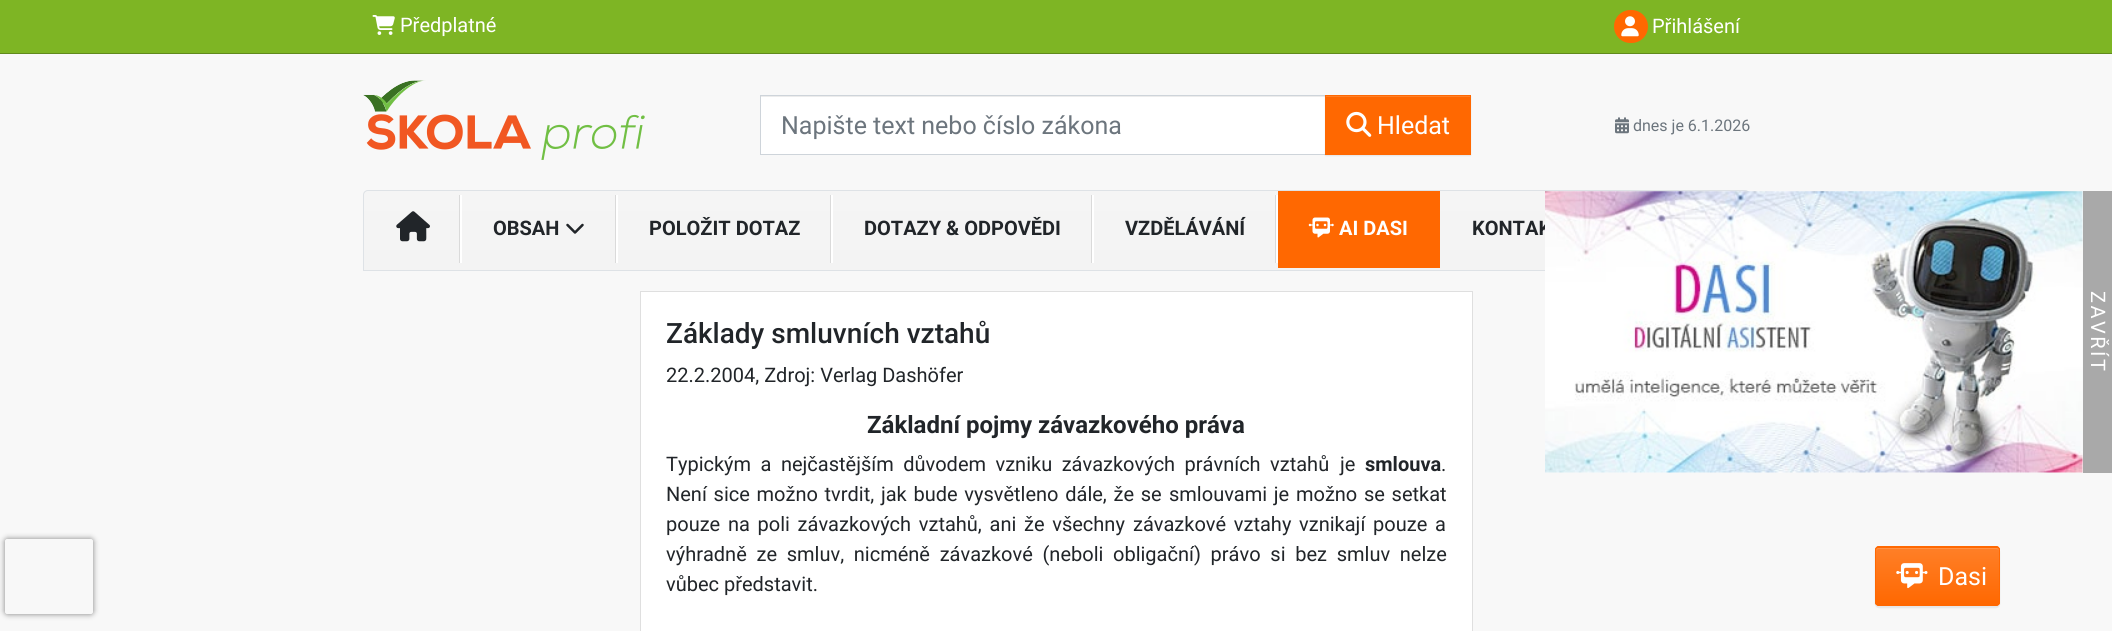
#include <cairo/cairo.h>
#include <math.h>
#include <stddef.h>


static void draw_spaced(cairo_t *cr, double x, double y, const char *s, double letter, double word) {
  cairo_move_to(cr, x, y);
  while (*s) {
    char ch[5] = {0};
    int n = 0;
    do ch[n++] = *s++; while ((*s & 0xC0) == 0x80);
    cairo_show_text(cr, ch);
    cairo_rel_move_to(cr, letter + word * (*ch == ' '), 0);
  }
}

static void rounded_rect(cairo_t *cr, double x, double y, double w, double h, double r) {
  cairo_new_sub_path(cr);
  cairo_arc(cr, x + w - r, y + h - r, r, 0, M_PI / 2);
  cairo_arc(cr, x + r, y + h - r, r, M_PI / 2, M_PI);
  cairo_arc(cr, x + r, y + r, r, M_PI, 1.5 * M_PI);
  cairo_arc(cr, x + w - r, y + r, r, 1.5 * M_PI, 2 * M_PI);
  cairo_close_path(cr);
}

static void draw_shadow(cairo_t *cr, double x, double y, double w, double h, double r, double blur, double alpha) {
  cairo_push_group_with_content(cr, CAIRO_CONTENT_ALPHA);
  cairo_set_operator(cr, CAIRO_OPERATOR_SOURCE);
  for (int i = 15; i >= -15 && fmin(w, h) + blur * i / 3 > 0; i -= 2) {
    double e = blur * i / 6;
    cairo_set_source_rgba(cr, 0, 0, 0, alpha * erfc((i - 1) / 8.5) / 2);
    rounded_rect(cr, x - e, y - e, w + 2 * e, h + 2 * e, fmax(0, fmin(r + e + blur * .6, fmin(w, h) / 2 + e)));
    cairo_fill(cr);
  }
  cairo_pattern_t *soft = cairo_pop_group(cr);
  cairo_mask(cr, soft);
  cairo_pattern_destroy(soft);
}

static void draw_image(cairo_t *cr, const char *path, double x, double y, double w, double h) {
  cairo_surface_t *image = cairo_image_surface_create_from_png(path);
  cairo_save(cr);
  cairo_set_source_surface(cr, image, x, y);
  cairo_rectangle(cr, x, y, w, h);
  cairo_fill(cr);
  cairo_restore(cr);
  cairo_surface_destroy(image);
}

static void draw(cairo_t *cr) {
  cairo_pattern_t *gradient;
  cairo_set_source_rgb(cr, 248 / 255.0, 248 / 255.0, 248 / 255.0);
  cairo_paint(cr);
  cairo_save(cr);
  cairo_set_fill_rule(cr, CAIRO_FILL_RULE_EVEN_ODD);
  cairo_new_path(cr);
  cairo_move_to(cr, 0, 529);
  cairo_line_to(cr, 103, 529);
  cairo_line_to(cr, 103, 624);
  cairo_line_to(cr, 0, 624);
  cairo_close_path(cr);
  cairo_move_to(cr, 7.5, 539);
  cairo_line_to(cr, 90.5, 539);
  cairo_curve_to(cr, 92, 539, 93, 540, 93, 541.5);
  cairo_line_to(cr, 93, 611.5);
  cairo_curve_to(cr, 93, 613, 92, 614, 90.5, 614);
  cairo_line_to(cr, 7.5, 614);
  cairo_curve_to(cr, 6, 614, 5, 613, 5, 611.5);
  cairo_line_to(cr, 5, 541.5);
  cairo_curve_to(cr, 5, 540, 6, 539, 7.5, 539);
  cairo_close_path(cr);
  cairo_clip(cr);
  cairo_set_source_rgb(cr, 128 / 255.0, 128 / 255.0, 128 / 255.0);
  draw_shadow(cr, 5, 539, 88, 75, 2.5, 3, 1);
  cairo_restore(cr);
  cairo_set_source_rgb(cr, 126 / 255.0, 181 / 255.0, 36 / 255.0);
  cairo_rectangle(cr, 0, 0, 2112, 53);
  cairo_fill(cr);
  cairo_set_source_rgb(cr, 96 / 255.0, 138 / 255.0, 28 / 255.0);
  cairo_rectangle(cr, 0, 53, 2112, 1);
  cairo_fill(cr);
  draw_image(cr, "images/1.png", 372, 15, 23, 20);
  cairo_set_source_rgb(cr, 1, 104 / 255.0, 1 / 255.0);
  rounded_rect(cr, 1614, 10, 34, 33, 16.5);
  cairo_fill(cr);
  draw_image(cr, "images/2.png", 1621, 16, 18, 21);
  draw_image(cr, "images/3.png", 363, 80, 282, 80);
  cairo_set_source_rgb(cr, 1, 1, 1);
  cairo_rectangle(cr, 761, 97, 564, 57);
  cairo_fill(cr);
  cairo_set_source_rgb(cr, 236 / 255.0, 236 / 255.0, 236 / 255.0);
  cairo_rectangle(cr, 761, 96, 564, 1);
  cairo_fill(cr);
  cairo_rectangle(cr, 760.5, 95.5, 565, 59);
  cairo_set_source_rgb(cr, 206 / 255.0, 212 / 255.0, 218 / 255.0);
  cairo_set_line_width(cr, 1);
  cairo_stroke(cr);
  cairo_set_source_rgb(cr, 0, 0, 0);
  draw_shadow(cr, 1325, 96, 146, 60, 0, 0.5, 0.07);
  cairo_set_source_rgb(cr, 1, 104 / 255.0, 1 / 255.0);
  cairo_rectangle(cr, 1325, 95, 146, 60);
  cairo_fill(cr);
  cairo_set_source_rgb(cr, 1, 127 / 255.0, 39 / 255.0);
  cairo_rectangle(cr, 1326, 96, 144, 1);
  cairo_fill(cr);
  draw_image(cr, "images/4.png", 1346, 111, 26, 26);
  draw_image(cr, "images/5.png", 1615, 117, 14, 17);
  cairo_save(cr);
  cairo_new_path(cr);
  cairo_move_to(cr, 368, 190);
  cairo_line_to(cr, 1745, 190);
  cairo_curve_to(cr, 1748, 190, 1750, 192, 1750, 195);
  cairo_line_to(cr, 1750, 271);
  cairo_line_to(cr, 363, 271);
  cairo_line_to(cr, 363, 195);
  cairo_curve_to(cr, 363, 192, 365, 190, 368, 190);
  cairo_close_path(cr);
  cairo_clip(cr);
  gradient = cairo_pattern_create_linear(1056, 191, 1056, 270);
  cairo_pattern_add_color_stop_rgba(gradient, 0, 245 / 255.0, 245 / 255.0, 245 / 255.0, 1);
  cairo_pattern_add_color_stop_rgba(gradient, 1, 243 / 255.0, 243 / 255.0, 243 / 255.0, 1);
  cairo_set_source(cr, gradient);
  cairo_pattern_destroy(gradient);
  cairo_rectangle(cr, 363, 191, 1386, 79);
  cairo_fill(cr);
  cairo_restore(cr);
  cairo_new_path(cr);
  cairo_move_to(cr, 368, 190.5);
  cairo_line_to(cr, 1745, 190.5);
  cairo_curve_to(cr, 1747.5, 190.5, 1749.5, 192.5, 1749.5, 195);
  cairo_line_to(cr, 1749.5, 270.5);
  cairo_line_to(cr, 363.5, 270.5);
  cairo_line_to(cr, 363.5, 195);
  cairo_curve_to(cr, 363.5, 192.5, 365.5, 190.5, 368, 190.5);
  cairo_close_path(cr);
  cairo_set_source_rgb(cr, 222 / 255.0, 226 / 255.0, 230 / 255.0);
  cairo_stroke(cr);
  draw_image(cr, "images/6.png", 396, 211, 34, 31);
  cairo_set_source_rgb(cr, 1, 1, 1);
  cairo_rectangle(cr, 460, 195, 2, 68);
  cairo_fill(cr);
  cairo_set_source_rgb(cr, 218 / 255.0, 218 / 255.0, 218 / 255.0);
  cairo_rectangle(cr, 459, 195, 1, 68);
  cairo_fill(cr);
  draw_image(cr, "images/7.png", 566, 223, 18, 11);
  cairo_set_source_rgb(cr, 1, 1, 1);
  cairo_rectangle(cr, 616, 195, 2, 68);
  cairo_fill(cr);
  cairo_set_source_rgb(cr, 218 / 255.0, 218 / 255.0, 218 / 255.0);
  cairo_rectangle(cr, 615, 195, 1, 68);
  cairo_fill(cr);
  cairo_set_source_rgb(cr, 1, 1, 1);
  cairo_rectangle(cr, 831, 195, 2, 68);
  cairo_fill(cr);
  cairo_set_source_rgb(cr, 218 / 255.0, 218 / 255.0, 218 / 255.0);
  cairo_rectangle(cr, 830, 195, 1, 68);
  cairo_fill(cr);
  cairo_set_source_rgb(cr, 1, 1, 1);
  cairo_rectangle(cr, 1092, 195, 2, 68);
  cairo_fill(cr);
  cairo_set_source_rgb(cr, 218 / 255.0, 218 / 255.0, 218 / 255.0);
  cairo_rectangle(cr, 1091, 195, 1, 68);
  cairo_fill(cr);
  cairo_set_source_rgb(cr, 1, 1, 1);
  cairo_rectangle(cr, 1276, 195, 2, 68);
  cairo_fill(cr);
  cairo_set_source_rgb(cr, 218 / 255.0, 218 / 255.0, 218 / 255.0);
  cairo_rectangle(cr, 1275, 195, 1, 68);
  cairo_fill(cr);
  cairo_set_source_rgb(cr, 1, 104 / 255.0, 1 / 255.0);
  cairo_rectangle(cr, 1278, 191, 162, 77);
  cairo_fill(cr);
  draw_image(cr, "images/8.png", 1308, 217, 26, 21);
  cairo_set_source_rgb(cr, 1, 1, 1);
  cairo_rectangle(cr, 640.5, 291.5, 832, 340);
  cairo_fill_preserve(cr);
  cairo_set_source_rgb(cr, 223 / 255.0, 223 / 255.0, 223 / 255.0);
  cairo_stroke(cr);
  cairo_set_source_rgb(cr, 0, 0, 0);
  draw_shadow(cr, 1875, 548, 125, 60, 4, 0.5, 0.07);
  cairo_set_source_rgb(cr, 1, 104 / 255.0, 1 / 255.0);
  rounded_rect(cr, 1875, 546, 125, 60, 4);
  cairo_fill(cr);
  cairo_save(cr);
  rounded_rect(cr, 1875, 546, 125, 60, 4);
  cairo_clip(cr);
  gradient = cairo_pattern_create_linear(1938, 548, 1938, 605);
  cairo_pattern_add_color_stop_rgba(gradient, 0, 1, 127 / 255.0, 39 / 255.0, 1);
  cairo_pattern_add_color_stop_rgba(gradient, 1, 1, 104 / 255.0, 1 / 255.0, 1);
  cairo_set_source(cr, gradient);
  cairo_pattern_destroy(gradient);
  cairo_rectangle(cr, 1875, 548, 125, 57);
  cairo_fill(cr);
  cairo_restore(cr);
  cairo_set_source_rgb(cr, 1, 146 / 255.0, 71 / 255.0);
  cairo_new_path(cr);
  cairo_move_to(cr, 1879, 549);
  cairo_line_to(cr, 1996, 549);
  cairo_curve_to(cr, 1998, 549, 1999, 550, 1999, 551);
  cairo_curve_to(cr, 1999, 549, 1998, 548, 1996, 548);
  cairo_line_to(cr, 1878, 548);
  cairo_curve_to(cr, 1876, 549, 1876, 550, 1876, 551);
  cairo_curve_to(cr, 1876, 550, 1877, 549, 1879, 549);
  cairo_close_path(cr);
  cairo_fill(cr);
  rounded_rect(cr, 1875.5, 546.5, 124, 59, 3.5);
  cairo_set_source_rgb(cr, 1, 104 / 255.0, 1 / 255.0);
  cairo_stroke(cr);
  draw_image(cr, "images/9.png", 1896, 563, 32, 26);
  cairo_set_source_rgb(cr, 169 / 255.0, 169 / 255.0, 169 / 255.0);
  cairo_rectangle(cr, 2083, 191, 29, 282);
  cairo_fill(cr);
  cairo_select_font_face(cr, "Roboto", CAIRO_FONT_SLANT_NORMAL, CAIRO_FONT_WEIGHT_NORMAL);
  cairo_set_font_size(cr, 20);
  cairo_set_source_rgb(cr, 1, 1, 1);
  cairo_move_to(cr, 400, 32);
  cairo_show_text(cr, "Předplatné");
  cairo_move_to(cr, 1652, 33);
  cairo_show_text(cr, "Přihlášení");
  cairo_set_font_size(cr, 25);
  cairo_set_source_rgb(cr, 108 / 255.0, 117 / 255.0, 125 / 255.0);
  cairo_move_to(cr, 781, 134);
  cairo_show_text(cr, "Napište text nebo číslo zákona");
  cairo_set_source_rgb(cr, 1, 1, 1);
  cairo_move_to(cr, 1377, 134);
  cairo_show_text(cr, "Hledat");
  cairo_set_font_size(cr, 16);
  cairo_set_source_rgb(cr, 108 / 255.0, 117 / 255.0, 125 / 255.0);
  cairo_move_to(cr, 1633, 131);
  cairo_show_text(cr, "dnes je 6.1.2026");
  cairo_select_font_face(cr, "Roboto", CAIRO_FONT_SLANT_NORMAL, CAIRO_FONT_WEIGHT_BOLD);
  cairo_set_font_size(cr, 20);
  cairo_set_source_rgb(cr, 33 / 255.0, 37 / 255.0, 41 / 255.0);
  cairo_move_to(cr, 493, 235);
  cairo_show_text(cr, "OBSAH");
  cairo_move_to(cr, 649, 235);
  cairo_show_text(cr, "POLOŽIT DOTAZ");
  cairo_move_to(cr, 864, 235);
  cairo_show_text(cr, "DOTAZY & ODPOVĚDI");
  cairo_move_to(cr, 1125, 235);
  cairo_show_text(cr, "VZDĚLÁVÁNÍ");
  cairo_set_source_rgb(cr, 1, 1, 1);
  cairo_move_to(cr, 1339, 235);
  cairo_show_text(cr, "AI DASI");
  cairo_set_source_rgb(cr, 33 / 255.0, 37 / 255.0, 41 / 255.0);
  cairo_move_to(cr, 1472, 235);
  cairo_show_text(cr, "KONTAK");
  cairo_select_font_face(cr, "Roboto Medium", CAIRO_FONT_SLANT_NORMAL, CAIRO_FONT_WEIGHT_NORMAL);
  cairo_set_font_size(cr, 28);
  cairo_move_to(cr, 666, 343);
  cairo_show_text(cr, "Základy smluvních vztahů");
  cairo_select_font_face(cr, "Roboto", CAIRO_FONT_SLANT_NORMAL, CAIRO_FONT_WEIGHT_NORMAL);
  cairo_set_font_size(cr, 20);
  cairo_move_to(cr, 666, 382);
  cairo_show_text(cr, "22.2.2004, Zdroj: Verlag Dashöfer");
  cairo_select_font_face(cr, "Roboto", CAIRO_FONT_SLANT_NORMAL, CAIRO_FONT_WEIGHT_BOLD);
  cairo_set_font_size(cr, 24);
  cairo_move_to(cr, 867, 433);
  cairo_show_text(cr, "Základní pojmy závazkového práva");
  cairo_select_font_face(cr, "Roboto", CAIRO_FONT_SLANT_NORMAL, CAIRO_FONT_WEIGHT_NORMAL);
  cairo_set_font_size(cr, 20);
  draw_spaced(cr, 666, 471, "Typickým a nejčastějším důvodem vzniku závazkových právních vztahů", 0, 4.5);
  cairo_move_to(cr, 1340, 471);
  cairo_show_text(cr, "je");
  cairo_select_font_face(cr, "Roboto", CAIRO_FONT_SLANT_NORMAL, CAIRO_FONT_WEIGHT_BOLD);
  cairo_move_to(cr, 1365, 471);
  cairo_show_text(cr, "smlouva");
  cairo_select_font_face(cr, "Roboto", CAIRO_FONT_SLANT_NORMAL, CAIRO_FONT_WEIGHT_NORMAL);
  cairo_move_to(cr, 1441, 471);
  cairo_show_text(cr, ".");
  draw_spaced(cr, 666, 501, "Není sice možno tvrdit, jak bude vysvětleno dále, že se", 0, 1.75);
  draw_spaced(cr, 1169, 501, "smlouvami je možno se setkat", 0, 1.75);
  draw_spaced(cr, 666, 531, "pouze na poli závazkových vztahů, ani že všechny", 0, 2.75);
  draw_spaced(cr, 1133, 531, "závazkové vztahy vznikají pouze a", 0, 2.75);
  draw_spaced(cr, 666, 561, "výhradně ze smluv, nicméně závazkové (neboli", 0, 4.75);
  draw_spaced(cr, 1113, 561, "obligační) právo si bez smluv nelze", 0, 4.75);
  cairo_move_to(cr, 666, 591);
  cairo_show_text(cr, "vůbec představit.");
  cairo_set_font_size(cr, 25);
  cairo_set_source_rgb(cr, 1, 1, 1);
  cairo_move_to(cr, 1938, 585);
  cairo_show_text(cr, "Dasi");
  draw_image(cr, "images/10.png", 1545, 191, 538, 282);
  cairo_set_font_size(cr, 20);
  cairo_save(cr);
  cairo_translate(cr, 2091, 291);
  cairo_rotate(cr, 90 * M_PI / 180);
  draw_spaced(cr, 0, 0, "ZAVŘÍT", 2.5, 0);
  cairo_restore(cr);
}

int main(void) {
  cairo_surface_t *surface = cairo_image_surface_create(CAIRO_FORMAT_RGB24, 2112, 631);
  cairo_t *cr = cairo_create(surface);
  cairo_font_options_t *options = cairo_font_options_create();
  cairo_font_options_set_hint_metrics(options, CAIRO_HINT_METRICS_OFF);
  cairo_font_options_set_hint_style(options, CAIRO_HINT_STYLE_NONE);
  cairo_set_font_options(cr, options);
  cairo_set_miter_limit(cr, 4);
  draw(cr);
  cairo_surface_write_to_png(surface, "out.png");
  cairo_font_options_destroy(options);
  cairo_destroy(cr);
  cairo_surface_destroy(surface);
  return 0;
}
